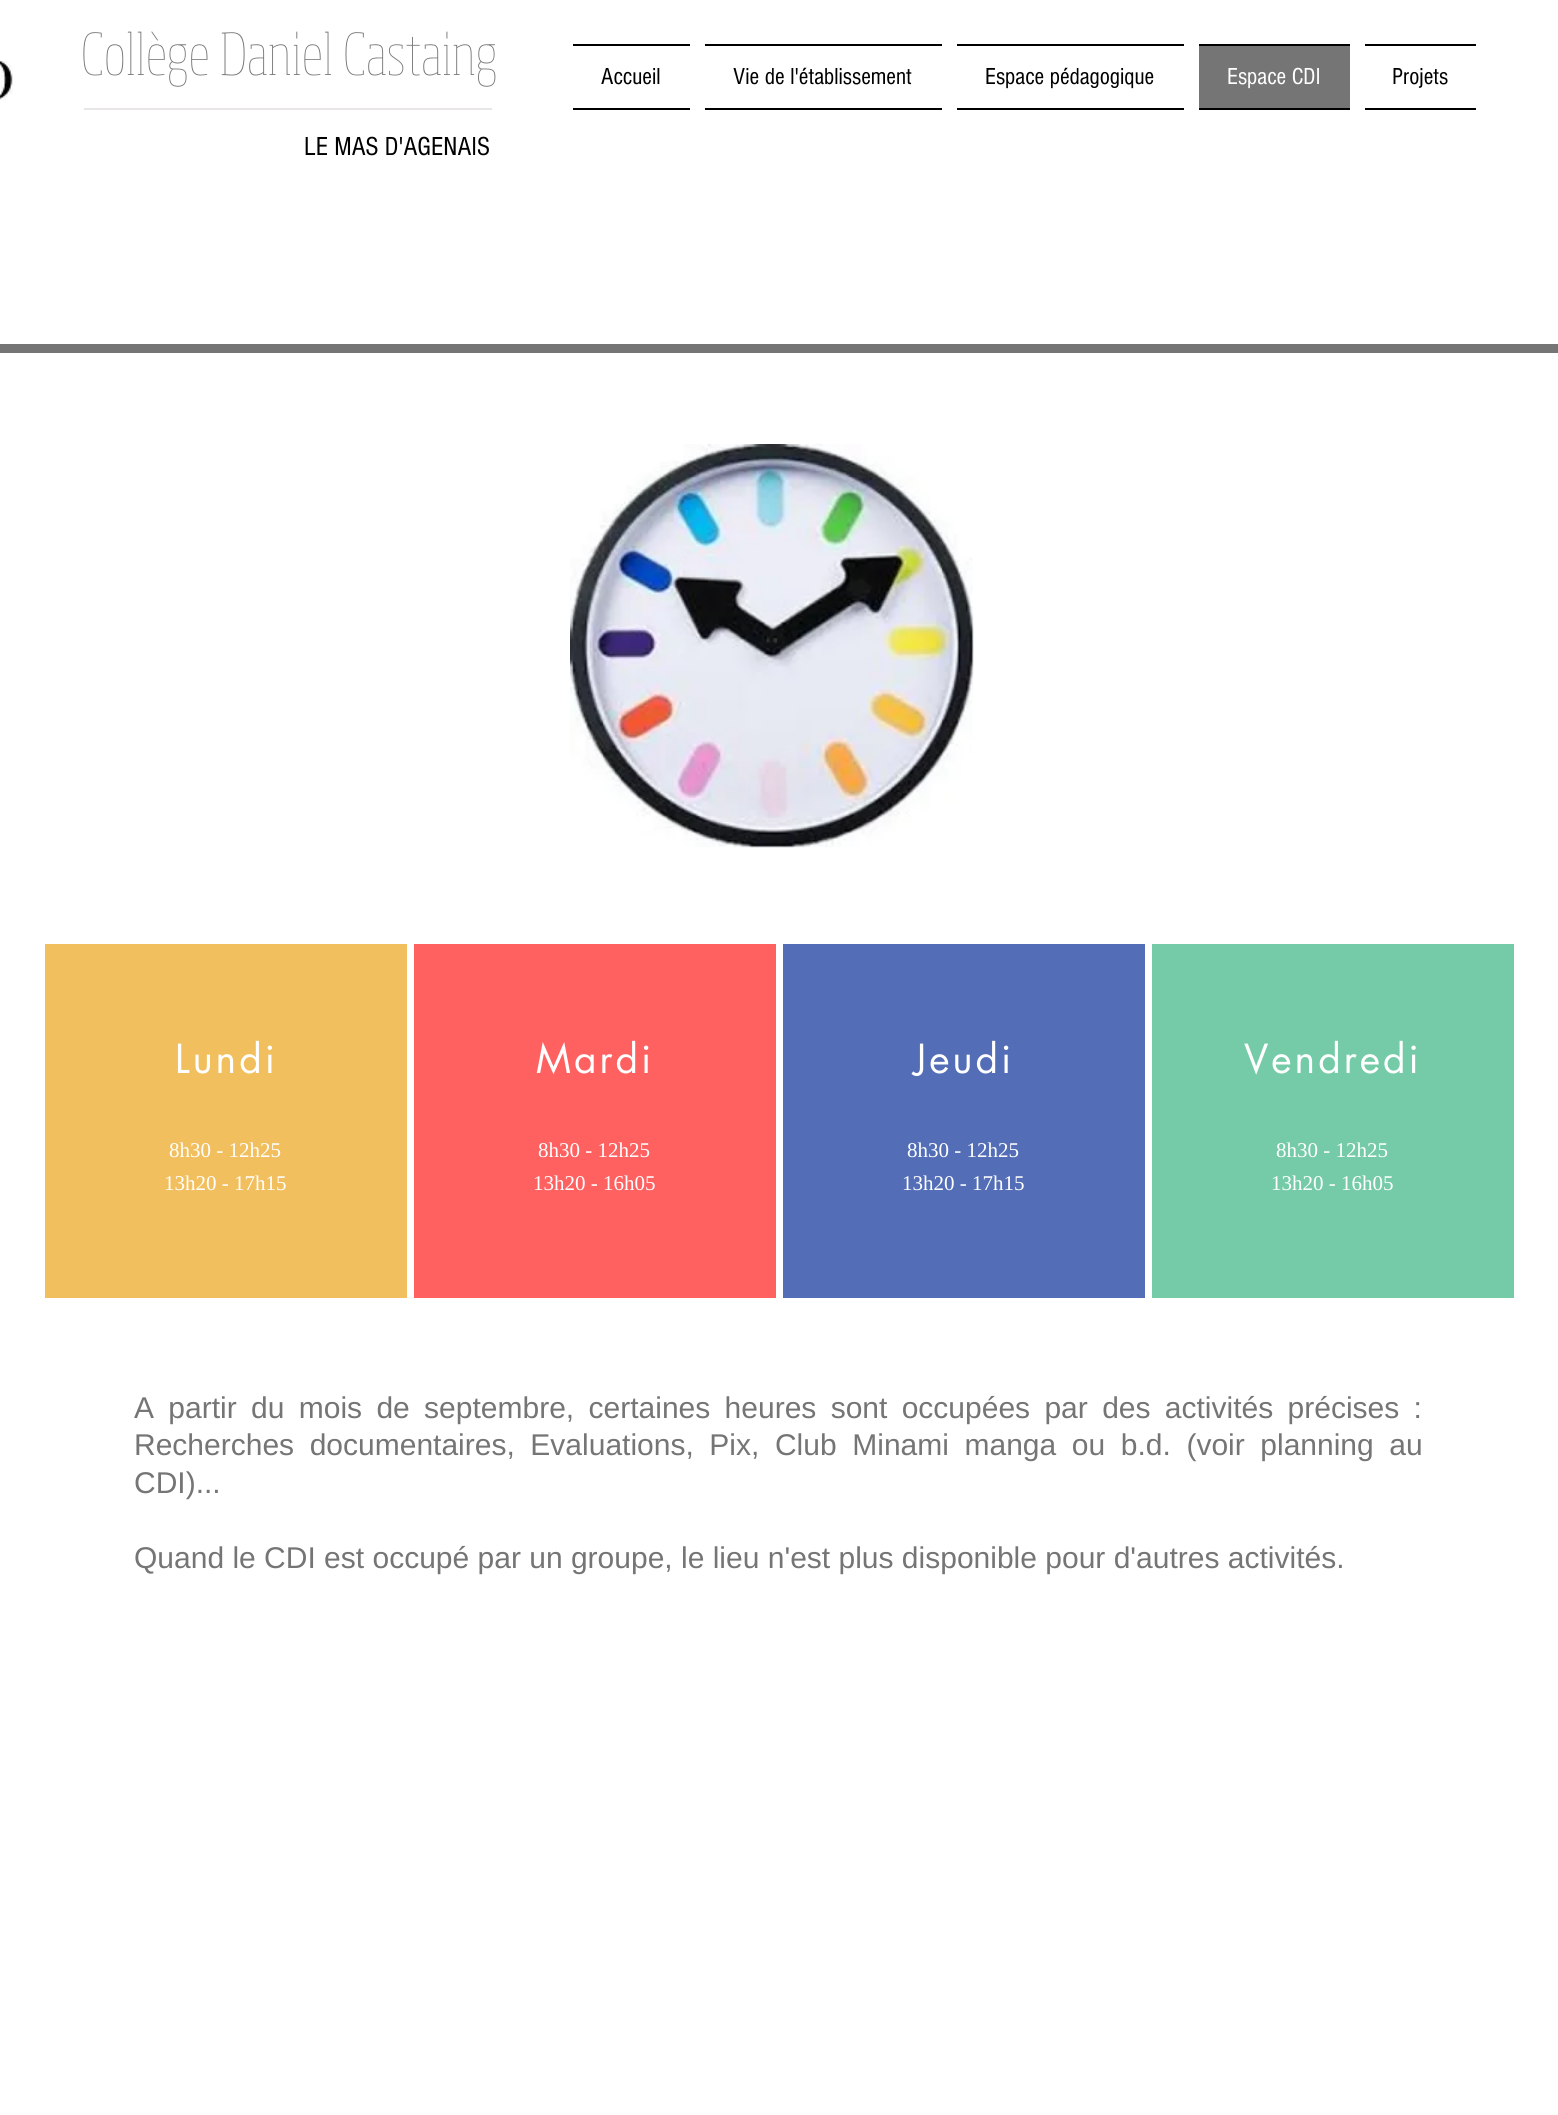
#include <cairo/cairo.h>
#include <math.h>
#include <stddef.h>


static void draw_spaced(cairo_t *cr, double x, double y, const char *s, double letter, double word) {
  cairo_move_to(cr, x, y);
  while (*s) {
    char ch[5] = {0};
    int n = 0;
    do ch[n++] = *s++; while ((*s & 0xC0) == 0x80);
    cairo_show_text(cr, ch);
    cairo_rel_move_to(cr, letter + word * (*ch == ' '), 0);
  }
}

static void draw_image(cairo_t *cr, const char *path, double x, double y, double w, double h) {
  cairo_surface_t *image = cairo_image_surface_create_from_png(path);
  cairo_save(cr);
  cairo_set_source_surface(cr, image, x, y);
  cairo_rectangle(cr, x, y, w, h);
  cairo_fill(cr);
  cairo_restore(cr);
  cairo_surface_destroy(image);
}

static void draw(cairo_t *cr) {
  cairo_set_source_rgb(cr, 1, 1, 1);
  cairo_paint(cr);
  draw_image(cr, "images/1.png", 0, 60, 13, 40);
  cairo_set_source_rgb(cr, 0, 0, 0);
  cairo_rectangle(cr, 573, 44, 117, 2);
  cairo_fill(cr);
  cairo_rectangle(cr, 573, 108, 117, 2);
  cairo_fill(cr);
  cairo_rectangle(cr, 705, 44, 237, 2);
  cairo_fill(cr);
  cairo_rectangle(cr, 705, 108, 237, 2);
  cairo_fill(cr);
  cairo_rectangle(cr, 957, 44, 227, 2);
  cairo_fill(cr);
  cairo_rectangle(cr, 957, 108, 227, 2);
  cairo_fill(cr);
  cairo_set_source_rgb(cr, 117 / 255.0, 117 / 255.0, 117 / 255.0);
  cairo_rectangle(cr, 1199, 46, 151, 62);
  cairo_fill(cr);
  cairo_set_source_rgb(cr, 0, 0, 0);
  cairo_rectangle(cr, 1199, 44, 151, 2);
  cairo_fill(cr);
  cairo_rectangle(cr, 1199, 108, 151, 2);
  cairo_fill(cr);
  cairo_rectangle(cr, 1365, 44, 111, 2);
  cairo_fill(cr);
  cairo_rectangle(cr, 1365, 108, 111, 2);
  cairo_fill(cr);
  draw_image(cr, "images/2.png", 83, 31, 413, 56);
  cairo_set_source_rgb(cr, 232 / 255.0, 230 / 255.0, 230 / 255.0);
  cairo_rectangle(cr, 84, 108, 408, 2);
  cairo_fill(cr);
  cairo_set_source_rgb(cr, 117 / 255.0, 117 / 255.0, 117 / 255.0);
  cairo_rectangle(cr, 0, 344, 1558, 9);
  cairo_fill(cr);
  draw_image(cr, "images/3.png", 570, 444, 404, 404);
  cairo_set_source_rgb(cr, 242 / 255.0, 191 / 255.0, 94 / 255.0);
  cairo_rectangle(cr, 45, 944, 362, 354);
  cairo_fill(cr);
  cairo_set_source_rgb(cr, 1, 97 / 255.0, 97 / 255.0);
  cairo_rectangle(cr, 414, 944, 362, 354);
  cairo_fill(cr);
  cairo_set_source_rgb(cr, 83 / 255.0, 110 / 255.0, 183 / 255.0);
  cairo_rectangle(cr, 783, 944, 362, 354);
  cairo_fill(cr);
  cairo_set_source_rgb(cr, 117 / 255.0, 203 / 255.0, 168 / 255.0);
  cairo_rectangle(cr, 1152, 944, 362, 354);
  cairo_fill(cr);
  cairo_select_font_face(cr, "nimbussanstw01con", CAIRO_FONT_SLANT_NORMAL, CAIRO_FONT_WEIGHT_NORMAL);
  cairo_set_font_size(cr, 24);
  cairo_set_source_rgb(cr, 0, 0, 0);
  cairo_move_to(cr, 601, 84);
  cairo_show_text(cr, "Accueil");
  cairo_move_to(cr, 733, 84);
  cairo_show_text(cr, "Vie de l'établissement");
  cairo_move_to(cr, 985, 84);
  cairo_show_text(cr, "Espace pédagogique");
  cairo_set_source_rgb(cr, 1, 1, 1);
  cairo_move_to(cr, 1227, 84);
  cairo_show_text(cr, "Espace CDI");
  cairo_set_source_rgb(cr, 0, 0, 0);
  cairo_move_to(cr, 1392, 84);
  cairo_show_text(cr, "Projets");
  cairo_set_font_size(cr, 27);
  cairo_move_to(cr, 304, 155);
  cairo_show_text(cr, "LE MAS D'AGENAIS");
  cairo_select_font_face(cr, "futura", CAIRO_FONT_SLANT_NORMAL, CAIRO_FONT_WEIGHT_NORMAL);
  cairo_set_font_size(cr, 39);
  cairo_set_source_rgb(cr, 1, 1, 1);
  draw_spaced(cr, 175, 1073, "Lundi", 3, 0);
  cairo_select_font_face(cr, "Liberation Serif", CAIRO_FONT_SLANT_NORMAL, CAIRO_FONT_WEIGHT_NORMAL);
  cairo_set_font_size(cr, 21);
  cairo_move_to(cr, 169, 1157);
  cairo_show_text(cr, "8h30 - 12h25");
  cairo_move_to(cr, 164, 1190);
  cairo_show_text(cr, "13h20 - 17h15");
  cairo_select_font_face(cr, "futura", CAIRO_FONT_SLANT_NORMAL, CAIRO_FONT_WEIGHT_NORMAL);
  cairo_set_font_size(cr, 39);
  draw_spaced(cr, 536, 1073, "Mardi", 3, 0);
  cairo_select_font_face(cr, "Liberation Serif", CAIRO_FONT_SLANT_NORMAL, CAIRO_FONT_WEIGHT_NORMAL);
  cairo_set_font_size(cr, 21);
  cairo_move_to(cr, 538, 1157);
  cairo_show_text(cr, "8h30 - 12h25");
  cairo_move_to(cr, 533, 1190);
  cairo_show_text(cr, "13h20 - 16h05");
  cairo_select_font_face(cr, "futura", CAIRO_FONT_SLANT_NORMAL, CAIRO_FONT_WEIGHT_NORMAL);
  cairo_set_font_size(cr, 39);
  draw_spaced(cr, 914, 1073, "Jeudi", 3, 0);
  cairo_select_font_face(cr, "Liberation Serif", CAIRO_FONT_SLANT_NORMAL, CAIRO_FONT_WEIGHT_NORMAL);
  cairo_set_font_size(cr, 21);
  cairo_move_to(cr, 907, 1157);
  cairo_show_text(cr, "8h30 - 12h25");
  cairo_move_to(cr, 902, 1190);
  cairo_show_text(cr, "13h20 - 17h15");
  cairo_select_font_face(cr, "futura", CAIRO_FONT_SLANT_NORMAL, CAIRO_FONT_WEIGHT_NORMAL);
  cairo_set_font_size(cr, 39);
  draw_spaced(cr, 1244, 1073, "Vendredi", 3, 0);
  cairo_select_font_face(cr, "Liberation Serif", CAIRO_FONT_SLANT_NORMAL, CAIRO_FONT_WEIGHT_NORMAL);
  cairo_set_font_size(cr, 21);
  cairo_move_to(cr, 1276, 1157);
  cairo_show_text(cr, "8h30 - 12h25");
  cairo_move_to(cr, 1271, 1190);
  cairo_show_text(cr, "13h20 - 16h05");
  cairo_select_font_face(cr, "Liberation Sans", CAIRO_FONT_SLANT_NORMAL, CAIRO_FONT_WEIGHT_NORMAL);
  cairo_set_font_size(cr, 30);
  cairo_set_source_rgb(cr, 117 / 255.0, 117 / 255.0, 117 / 255.0);
  draw_spaced(cr, 134, 1418, "A partir du mois de septembre, certaines heures sont occupées par des activités précises :", 0, 6);
  draw_spaced(cr, 134, 1455, "Recherches documentaires, Evaluations, Pix, Club Minami manga ou b.d. (voir planning au", 0, 7.25);
  cairo_move_to(cr, 134, 1493);
  cairo_show_text(cr, "CDI)...");
  cairo_move_to(cr, 134, 1568);
  cairo_show_text(cr, "Quand le CDI est occupé par un groupe, le lieu n'est plus disponible pour d'autres activités.");
}

int main(void) {
  cairo_surface_t *surface = cairo_image_surface_create(CAIRO_FORMAT_RGB24, 1558, 2115);
  cairo_t *cr = cairo_create(surface);
  cairo_font_options_t *options = cairo_font_options_create();
  cairo_font_options_set_hint_metrics(options, CAIRO_HINT_METRICS_OFF);
  cairo_font_options_set_hint_style(options, CAIRO_HINT_STYLE_NONE);
  cairo_set_font_options(cr, options);
  cairo_set_miter_limit(cr, 4);
  draw(cr);
  cairo_surface_write_to_png(surface, "out.png");
  cairo_font_options_destroy(options);
  cairo_destroy(cr);
  cairo_surface_destroy(surface);
  return 0;
}
